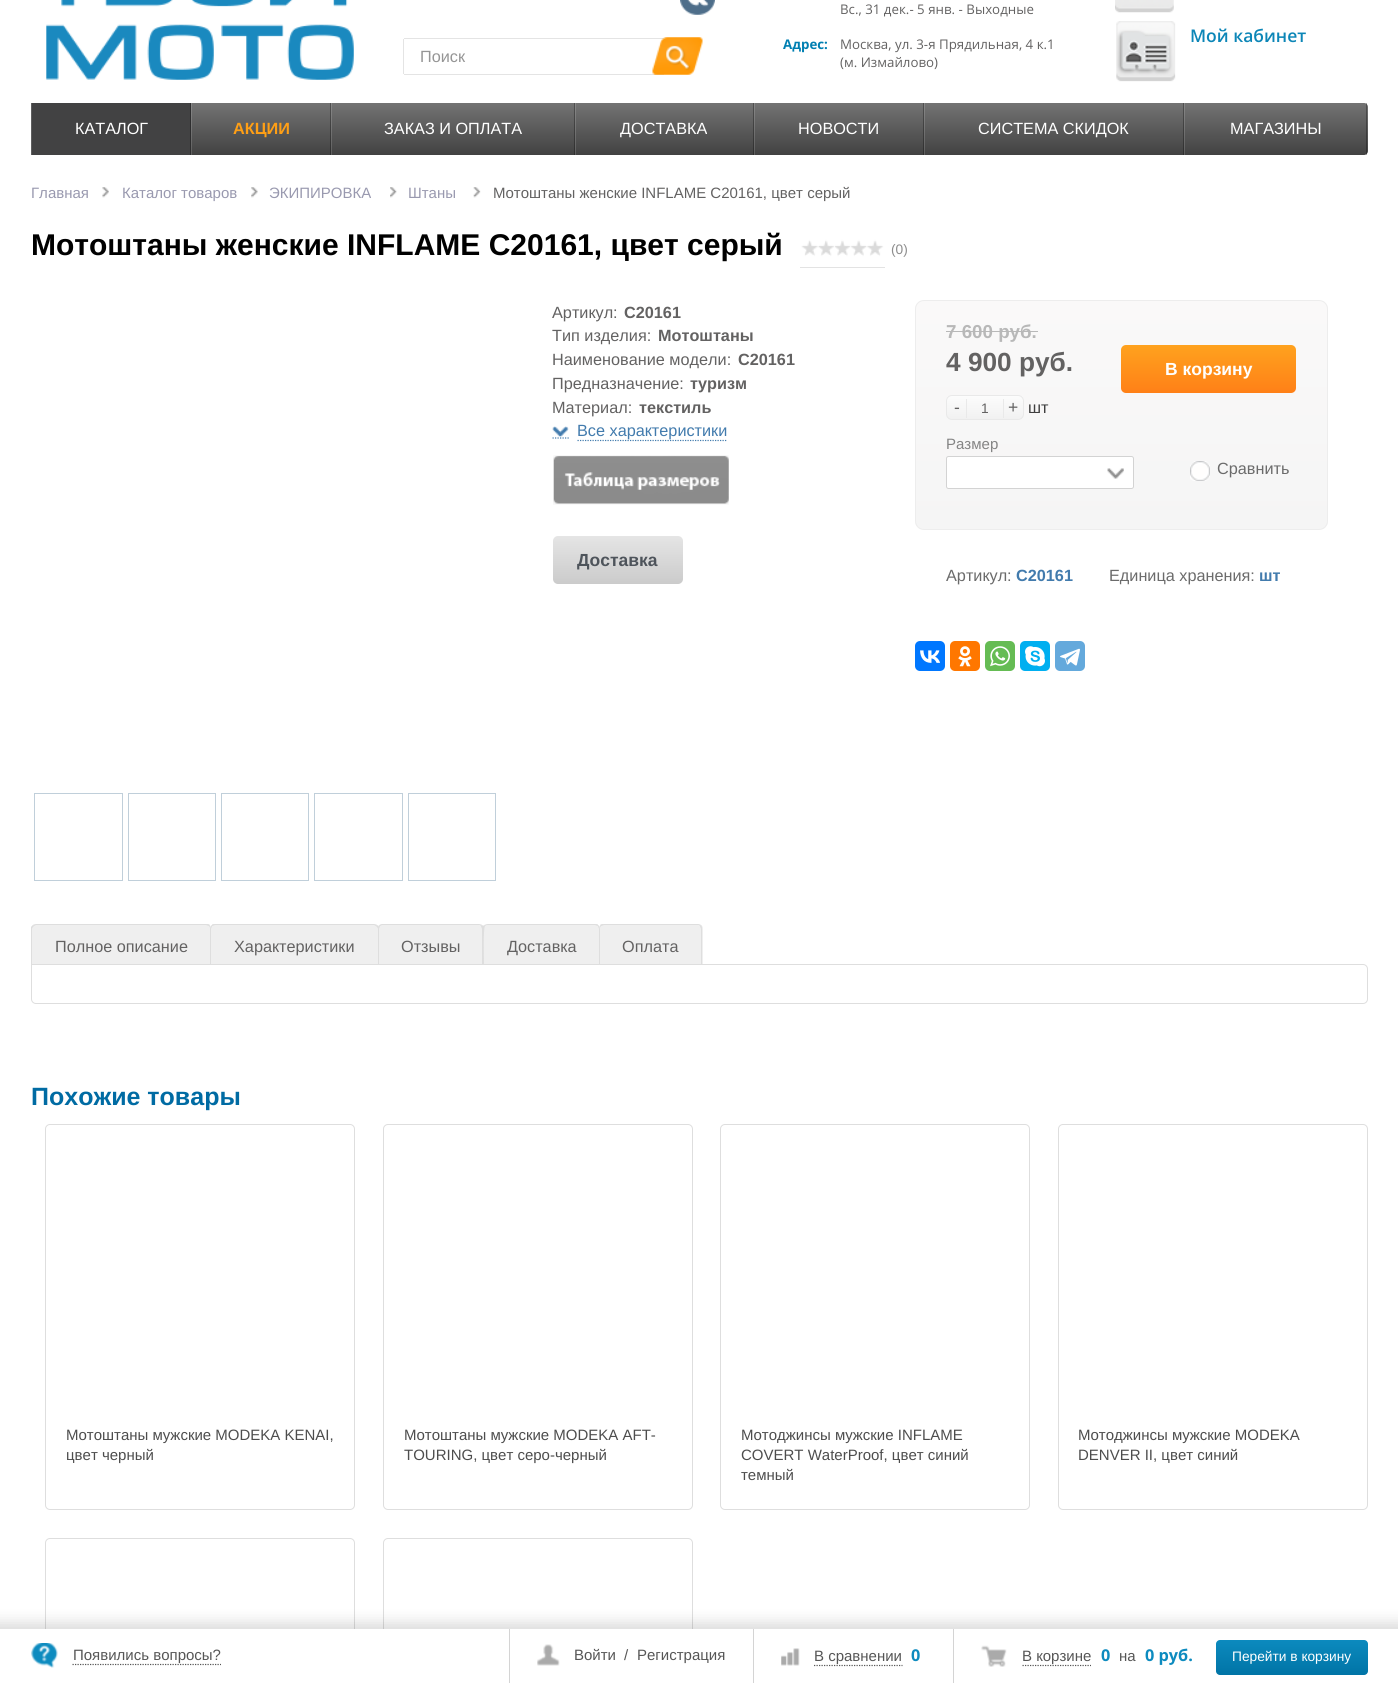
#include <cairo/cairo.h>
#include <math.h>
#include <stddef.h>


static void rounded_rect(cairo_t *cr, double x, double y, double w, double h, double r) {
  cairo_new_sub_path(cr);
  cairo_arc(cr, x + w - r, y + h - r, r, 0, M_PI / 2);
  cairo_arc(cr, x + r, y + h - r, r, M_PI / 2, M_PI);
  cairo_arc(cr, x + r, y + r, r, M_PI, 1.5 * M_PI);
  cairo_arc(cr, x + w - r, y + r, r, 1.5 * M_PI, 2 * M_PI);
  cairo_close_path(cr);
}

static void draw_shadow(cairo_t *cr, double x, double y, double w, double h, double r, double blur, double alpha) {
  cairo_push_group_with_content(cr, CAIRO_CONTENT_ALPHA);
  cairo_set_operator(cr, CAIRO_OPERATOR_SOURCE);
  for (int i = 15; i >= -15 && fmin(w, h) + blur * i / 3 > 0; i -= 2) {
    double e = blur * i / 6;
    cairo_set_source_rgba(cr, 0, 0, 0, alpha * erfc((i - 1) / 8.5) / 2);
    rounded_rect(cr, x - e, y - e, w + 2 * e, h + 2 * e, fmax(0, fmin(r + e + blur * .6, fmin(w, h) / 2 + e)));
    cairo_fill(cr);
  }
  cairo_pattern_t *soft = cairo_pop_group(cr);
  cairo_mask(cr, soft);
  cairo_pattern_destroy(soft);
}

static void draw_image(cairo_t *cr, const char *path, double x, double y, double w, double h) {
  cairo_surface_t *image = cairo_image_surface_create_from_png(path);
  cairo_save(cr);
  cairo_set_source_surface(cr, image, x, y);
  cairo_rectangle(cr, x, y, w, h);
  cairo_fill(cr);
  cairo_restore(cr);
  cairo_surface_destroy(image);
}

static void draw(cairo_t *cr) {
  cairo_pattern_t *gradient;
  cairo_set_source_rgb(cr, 1, 1, 1);
  cairo_paint(cr);
  draw_image(cr, "images/1.png", 46, 0, 308, 80);
  draw_image(cr, "images/2.png", 1115, 0, 59, 13);
  draw_image(cr, "images/3.png", 1116, 21, 60, 61);
  draw_image(cr, "images/4.png", 680, 0, 35, 15);
  cairo_set_source_rgb(cr, 228 / 255.0, 228 / 255.0, 228 / 255.0);
  cairo_rectangle(cr, 404, 38, 260, 1);
  cairo_fill(cr);
  cairo_rectangle(cr, 404, 74, 260, 1);
  cairo_fill(cr);
  cairo_rectangle(cr, 403, 39, 1, 35);
  cairo_fill(cr);
  draw_image(cr, "images/5.png", 652, 37, 51, 38);
  gradient = cairo_pattern_create_linear(699, 102, 699, 155);
  cairo_pattern_add_color_stop_rgba(gradient, 0, 116 / 255.0, 116 / 255.0, 116 / 255.0, 1);
  cairo_pattern_add_color_stop_rgba(gradient, 1, 66 / 255.0, 66 / 255.0, 66 / 255.0, 1);
  cairo_set_source(cr, gradient);
  cairo_pattern_destroy(gradient);
  rounded_rect(cr, 31, 103, 1337, 52, 4);
  cairo_fill(cr);
  gradient = cairo_pattern_create_linear(699, 102, 699, 155);
  cairo_pattern_add_color_stop_rgba(gradient, 0, 137 / 255.0, 137 / 255.0, 137 / 255.0, 1);
  cairo_pattern_add_color_stop_rgba(gradient, 1, 94 / 255.0, 94 / 255.0, 94 / 255.0, 1);
  cairo_set_source(cr, gradient);
  cairo_pattern_destroy(gradient);
  cairo_rectangle(cr, 1184, 103, 1, 52);
  cairo_fill(cr);
  cairo_rectangle(cr, 924, 103, 1, 52);
  cairo_fill(cr);
  gradient = cairo_pattern_create_linear(699, 102, 699, 155);
  cairo_pattern_add_color_stop_rgba(gradient, 0, 81 / 255.0, 81 / 255.0, 81 / 255.0, 1);
  cairo_pattern_add_color_stop_rgba(gradient, 1, 46 / 255.0, 46 / 255.0, 46 / 255.0, 1);
  cairo_set_source(cr, gradient);
  cairo_pattern_destroy(gradient);
  cairo_rectangle(cr, 1183, 103, 1, 52);
  cairo_fill(cr);
  gradient = cairo_pattern_create_linear(699, 102, 699, 155);
  cairo_pattern_add_color_stop_rgba(gradient, 0, 137 / 255.0, 137 / 255.0, 137 / 255.0, 1);
  cairo_pattern_add_color_stop_rgba(gradient, 1, 94 / 255.0, 94 / 255.0, 94 / 255.0, 1);
  cairo_set_source(cr, gradient);
  cairo_pattern_destroy(gradient);
  cairo_rectangle(cr, 754, 103, 1, 52);
  cairo_fill(cr);
  gradient = cairo_pattern_create_linear(699, 102, 699, 155);
  cairo_pattern_add_color_stop_rgba(gradient, 0, 81 / 255.0, 81 / 255.0, 81 / 255.0, 1);
  cairo_pattern_add_color_stop_rgba(gradient, 1, 46 / 255.0, 46 / 255.0, 46 / 255.0, 1);
  cairo_set_source(cr, gradient);
  cairo_pattern_destroy(gradient);
  cairo_rectangle(cr, 923, 103, 1, 52);
  cairo_fill(cr);
  gradient = cairo_pattern_create_linear(699, 102, 699, 155);
  cairo_pattern_add_color_stop_rgba(gradient, 0, 137 / 255.0, 137 / 255.0, 137 / 255.0, 1);
  cairo_pattern_add_color_stop_rgba(gradient, 1, 94 / 255.0, 94 / 255.0, 94 / 255.0, 1);
  cairo_set_source(cr, gradient);
  cairo_pattern_destroy(gradient);
  cairo_rectangle(cr, 575, 103, 1, 52);
  cairo_fill(cr);
  gradient = cairo_pattern_create_linear(699, 102, 699, 155);
  cairo_pattern_add_color_stop_rgba(gradient, 0, 81 / 255.0, 81 / 255.0, 81 / 255.0, 1);
  cairo_pattern_add_color_stop_rgba(gradient, 1, 46 / 255.0, 46 / 255.0, 46 / 255.0, 1);
  cairo_set_source(cr, gradient);
  cairo_pattern_destroy(gradient);
  cairo_rectangle(cr, 753, 103, 1, 52);
  cairo_fill(cr);
  gradient = cairo_pattern_create_linear(699, 102, 699, 155);
  cairo_pattern_add_color_stop_rgba(gradient, 0, 137 / 255.0, 137 / 255.0, 137 / 255.0, 1);
  cairo_pattern_add_color_stop_rgba(gradient, 1, 94 / 255.0, 94 / 255.0, 94 / 255.0, 1);
  cairo_set_source(cr, gradient);
  cairo_pattern_destroy(gradient);
  cairo_rectangle(cr, 331, 103, 1, 52);
  cairo_fill(cr);
  gradient = cairo_pattern_create_linear(699, 102, 699, 155);
  cairo_pattern_add_color_stop_rgba(gradient, 0, 81 / 255.0, 81 / 255.0, 81 / 255.0, 1);
  cairo_pattern_add_color_stop_rgba(gradient, 1, 46 / 255.0, 46 / 255.0, 46 / 255.0, 1);
  cairo_set_source(cr, gradient);
  cairo_pattern_destroy(gradient);
  cairo_rectangle(cr, 574, 103, 1, 52);
  cairo_fill(cr);
  gradient = cairo_pattern_create_linear(699, 102, 699, 155);
  cairo_pattern_add_color_stop_rgba(gradient, 0, 137 / 255.0, 137 / 255.0, 137 / 255.0, 1);
  cairo_pattern_add_color_stop_rgba(gradient, 1, 94 / 255.0, 94 / 255.0, 94 / 255.0, 1);
  cairo_set_source(cr, gradient);
  cairo_pattern_destroy(gradient);
  cairo_rectangle(cr, 191, 103, 1, 52);
  cairo_fill(cr);
  gradient = cairo_pattern_create_linear(699, 102, 699, 155);
  cairo_pattern_add_color_stop_rgba(gradient, 0, 81 / 255.0, 81 / 255.0, 81 / 255.0, 1);
  cairo_pattern_add_color_stop_rgba(gradient, 1, 46 / 255.0, 46 / 255.0, 46 / 255.0, 1);
  cairo_set_source(cr, gradient);
  cairo_pattern_destroy(gradient);
  cairo_rectangle(cr, 330, 103, 1, 52);
  cairo_fill(cr);
  cairo_set_source_rgb(cr, 66 / 255.0, 66 / 255.0, 67 / 255.0);
  cairo_rectangle(cr, 32, 103, 158, 52);
  cairo_fill(cr);
  cairo_set_source_rgb(cr, 46 / 255.0, 46 / 255.0, 47 / 255.0);
  cairo_rectangle(cr, 190, 103, 1, 52);
  cairo_fill(cr);
  cairo_set_source_rgb(cr, 94 / 255.0, 94 / 255.0, 95 / 255.0);
  cairo_rectangle(cr, 31, 103, 1, 52);
  cairo_fill(cr);
  cairo_set_source_rgba(cr, 0, 0, 0, 0.3);
  cairo_rectangle(cr, 1366, 103, 1, 52);
  cairo_fill(cr);
  draw_image(cr, "images/6.png", 102, 187, 7, 11);
  draw_image(cr, "images/7.png", 251, 187, 7, 11);
  draw_image(cr, "images/8.png", 390, 187, 7, 11);
  draw_image(cr, "images/9.png", 473, 187, 8, 11);
  cairo_set_source_rgb(cr, 218 / 255.0, 218 / 255.0, 218 / 255.0);
  cairo_rectangle(cr, 800, 239, 85, 29);
  cairo_fill(cr);
  draw_image(cr, "images/10.png", 800, 230, 85, 38);
  cairo_new_path(cr);
  cairo_move_to(cr, 552.5, 438);
  cairo_line_to(cr, 569, 438);
  cairo_set_source_rgb(cr, 66 / 255.0, 123 / 255.0, 173 / 255.0);
  cairo_set_line_width(cr, 1.2);
  cairo_set_dash(cr, (double[]){1.25, 1.25}, 2, 0);
  cairo_stroke(cr);
  cairo_new_path(cr);
  cairo_move_to(cr, 577.5, 440.5);
  cairo_line_to(cr, 727.5, 440.5);
  cairo_stroke(cr);
  draw_image(cr, "images/11.png", 552, 426, 17, 11);
  draw_image(cr, "images/12.png", 553, 455, 176, 50);
  gradient = cairo_pattern_create_linear(618, 536, 618, 584);
  cairo_pattern_add_color_stop_rgba(gradient, 0, 229 / 255.0, 229 / 255.0, 229 / 255.0, 1);
  cairo_pattern_add_color_stop_rgba(gradient, 1, 203 / 255.0, 203 / 255.0, 203 / 255.0, 1);
  cairo_set_source(cr, gradient);
  cairo_pattern_destroy(gradient);
  rounded_rect(cr, 553, 536, 130, 48, 5);
  cairo_fill(cr);
  cairo_save(cr);
  rounded_rect(cr, 915, 300, 413, 230, 9);
  cairo_clip(cr);
  gradient = cairo_pattern_create_linear(1121, 301, 1121, 529);
  cairo_pattern_add_color_stop_rgba(gradient, 0, 250 / 255.0, 249 / 255.0, 249 / 255.0, 1);
  cairo_pattern_add_color_stop_rgba(gradient, 1, 245 / 255.0, 245 / 255.0, 245 / 255.0, 1);
  cairo_set_source(cr, gradient);
  cairo_pattern_destroy(gradient);
  cairo_rectangle(cr, 915, 301, 413, 228);
  cairo_fill(cr);
  cairo_restore(cr);
  rounded_rect(cr, 915.5, 300.5, 412, 229, 8.5);
  cairo_set_source_rgb(cr, 237 / 255.0, 237 / 255.0, 237 / 255.0);
  cairo_set_line_width(cr, 1);
  cairo_set_dash(cr, NULL, 0, 0);
  cairo_stroke(cr);
  cairo_set_source_rgb(cr, 184 / 255.0, 184 / 255.0, 184 / 255.0);
  cairo_rectangle(cr, 946, 331, 92, 1);
  cairo_fill(cr);
  cairo_save(cr);
  rounded_rect(cr, 946, 395, 78, 25, 6);
  cairo_clip(cr);
  gradient = cairo_pattern_create_linear(985, 396, 985, 419);
  cairo_pattern_add_color_stop_rgba(gradient, 0, 252 / 255.0, 252 / 255.0, 252 / 255.0, 1);
  cairo_pattern_add_color_stop_rgba(gradient, 1, 241 / 255.0, 241 / 255.0, 241 / 255.0, 1);
  cairo_set_source(cr, gradient);
  cairo_pattern_destroy(gradient);
  cairo_rectangle(cr, 946, 396, 78, 23);
  cairo_fill(cr);
  cairo_restore(cr);
  rounded_rect(cr, 946.5, 395.5, 77, 24, 5.5);
  cairo_set_source_rgb(cr, 233 / 255.0, 233 / 255.0, 233 / 255.0);
  cairo_stroke(cr);
  cairo_rectangle(cr, 966, 399, 1, 19);
  cairo_fill(cr);
  cairo_rectangle(cr, 1003, 399, 1, 19);
  cairo_fill(cr);
  gradient = cairo_pattern_create_linear(1209, 345, 1209, 393);
  cairo_pattern_add_color_stop_rgba(gradient, 0, 1, 162 / 255.0, 30 / 255.0, 1);
  cairo_pattern_add_color_stop_rgba(gradient, 1, 1, 128 / 255.0, 23 / 255.0, 1);
  cairo_set_source(cr, gradient);
  cairo_pattern_destroy(gradient);
  rounded_rect(cr, 1121, 345, 175, 48, 5);
  cairo_fill(cr);
  cairo_set_source_rgb(cr, 1, 1, 1);
  rounded_rect(cr, 946.5, 456.5, 187, 32, 2);
  cairo_fill_preserve(cr);
  cairo_set_source_rgb(cr, 211 / 255.0, 211 / 255.0, 211 / 255.0);
  cairo_stroke(cr);
  draw_image(cr, "images/13.png", 1107, 468, 17, 11);
  draw_image(cr, "images/14.png", 1190, 461, 20, 20);
  cairo_set_source_rgb(cr, 0, 119 / 255.0, 1);
  rounded_rect(cr, 915, 641, 30, 30, 5);
  cairo_fill(cr);
  draw_image(cr, "images/15.png", 920, 650, 20, 13);
  cairo_set_source_rgb(cr, 1, 119 / 255.0, 0);
  rounded_rect(cr, 950, 641, 30, 30, 5);
  cairo_fill(cr);
  draw_image(cr, "images/16.png", 958, 646, 14, 21);
  cairo_set_source_rgb(cr, 101 / 255.0, 188 / 255.0, 84 / 255.0);
  rounded_rect(cr, 985, 641, 30, 30, 5);
  cairo_fill(cr);
  draw_image(cr, "images/17.png", 990, 646, 20, 21);
  cairo_set_source_rgb(cr, 0, 175 / 255.0, 240 / 255.0);
  rounded_rect(cr, 1020, 641, 30, 30, 5);
  cairo_fill(cr);
  draw_image(cr, "images/18.png", 1025, 646, 20, 21);
  cairo_set_source_rgb(cr, 100 / 255.0, 169 / 255.0, 220 / 255.0);
  rounded_rect(cr, 1055, 641, 30, 30, 5);
  cairo_fill(cr);
  draw_image(cr, "images/19.png", 1060, 648, 20, 18);
  cairo_rectangle(cr, 34.5, 793.5, 88, 87);
  cairo_set_source_rgb(cr, 192 / 255.0, 207 / 255.0, 218 / 255.0);
  cairo_stroke(cr);
  cairo_rectangle(cr, 128.5, 793.5, 87, 87);
  cairo_stroke(cr);
  cairo_rectangle(cr, 221.5, 793.5, 87, 87);
  cairo_stroke(cr);
  cairo_rectangle(cr, 314.5, 793.5, 88, 87);
  cairo_stroke(cr);
  cairo_rectangle(cr, 408.5, 793.5, 87, 87);
  cairo_stroke(cr);
  cairo_set_source_rgb(cr, 239 / 255.0, 239 / 255.0, 239 / 255.0);
  cairo_new_path(cr);
  cairo_move_to(cr, 36, 924);
  cairo_line_to(cr, 206, 924);
  cairo_curve_to(cr, 209, 924, 211, 926, 211, 929);
  cairo_line_to(cr, 211, 966);
  cairo_line_to(cr, 31, 966);
  cairo_line_to(cr, 31, 929);
  cairo_curve_to(cr, 31, 926, 33, 924, 36, 924);
  cairo_close_path(cr);
  cairo_fill(cr);
  cairo_set_source_rgb(cr, 222 / 255.0, 222 / 255.0, 222 / 255.0);
  cairo_new_path(cr);
  cairo_move_to(cr, 36, 924);
  cairo_line_to(cr, 33, 925);
  cairo_line_to(cr, 34, 926);
  cairo_line_to(cr, 36, 925);
  cairo_line_to(cr, 206, 925);
  cairo_line_to(cr, 209, 926);
  cairo_line_to(cr, 210, 925);
  cairo_curve_to(cr, 209, 924, 208, 924, 206, 924);
  cairo_close_path(cr);
  cairo_fill(cr);
  cairo_new_path(cr);
  cairo_move_to(cr, 211, 966);
  cairo_line_to(cr, 211, 929);
  cairo_curve_to(cr, 211, 928, 210, 926, 210, 925);
  cairo_line_to(cr, 209, 926);
  cairo_curve_to(cr, 210, 927, 210, 928, 210, 929);
  cairo_line_to(cr, 210, 965);
  cairo_close_path(cr);
  cairo_fill(cr);
  cairo_new_path(cr);
  cairo_move_to(cr, 31, 927);
  cairo_line_to(cr, 33, 925);
  cairo_line_to(cr, 34, 926);
  cairo_curve_to(cr, 33, 927, 32, 928, 32, 929);
  cairo_line_to(cr, 32, 965);
  cairo_line_to(cr, 31, 966);
  cairo_close_path(cr);
  cairo_fill(cr);
  cairo_set_source_rgb(cr, 239 / 255.0, 239 / 255.0, 239 / 255.0);
  cairo_new_path(cr);
  cairo_move_to(cr, 215, 924);
  cairo_line_to(cr, 374, 924);
  cairo_curve_to(cr, 377, 924, 379, 926, 379, 929);
  cairo_line_to(cr, 379, 966);
  cairo_line_to(cr, 210, 966);
  cairo_line_to(cr, 210, 929);
  cairo_curve_to(cr, 210, 926, 212, 924, 215, 924);
  cairo_close_path(cr);
  cairo_fill(cr);
  cairo_set_source_rgb(cr, 222 / 255.0, 222 / 255.0, 222 / 255.0);
  cairo_new_path(cr);
  cairo_move_to(cr, 215, 924);
  cairo_curve_to(cr, 214, 924, 212, 924, 212, 925);
  cairo_line_to(cr, 212, 926);
  cairo_line_to(cr, 215, 925);
  cairo_line_to(cr, 374, 925);
  cairo_line_to(cr, 376, 926);
  cairo_line_to(cr, 377, 925);
  cairo_line_to(cr, 374, 924);
  cairo_close_path(cr);
  cairo_fill(cr);
  cairo_new_path(cr);
  cairo_move_to(cr, 377, 925);
  cairo_line_to(cr, 379, 927);
  cairo_line_to(cr, 379, 966);
  cairo_line_to(cr, 378, 965);
  cairo_line_to(cr, 378, 929);
  cairo_curve_to(cr, 378, 928, 377, 927, 376, 926);
  cairo_close_path(cr);
  cairo_fill(cr);
  cairo_new_path(cr);
  cairo_move_to(cr, 210, 929);
  cairo_line_to(cr, 210, 966);
  cairo_line_to(cr, 211, 965);
  cairo_line_to(cr, 211, 929);
  cairo_curve_to(cr, 211, 928, 212, 927, 212, 926);
  cairo_line_to(cr, 212, 925);
  cairo_curve_to(cr, 211, 926, 210, 927, 210, 929);
  cairo_close_path(cr);
  cairo_fill(cr);
  cairo_set_source_rgb(cr, 239 / 255.0, 239 / 255.0, 239 / 255.0);
  cairo_new_path(cr);
  cairo_move_to(cr, 383, 924);
  cairo_line_to(cr, 479, 924);
  cairo_curve_to(cr, 482, 924, 484, 926, 484, 929);
  cairo_line_to(cr, 484, 966);
  cairo_line_to(cr, 378, 966);
  cairo_line_to(cr, 378, 929);
  cairo_curve_to(cr, 378, 926, 380, 924, 383, 924);
  cairo_close_path(cr);
  cairo_fill(cr);
  cairo_set_source_rgb(cr, 222 / 255.0, 222 / 255.0, 222 / 255.0);
  cairo_new_path(cr);
  cairo_move_to(cr, 382, 924);
  cairo_curve_to(cr, 381, 924, 380, 925, 379, 925);
  cairo_line_to(cr, 380, 926);
  cairo_line_to(cr, 382, 925);
  cairo_line_to(cr, 480, 925);
  cairo_line_to(cr, 481, 926);
  cairo_line_to(cr, 482, 925);
  cairo_line_to(cr, 479, 924);
  cairo_close_path(cr);
  cairo_fill(cr);
  cairo_new_path(cr);
  cairo_move_to(cr, 482, 925);
  cairo_line_to(cr, 484, 927);
  cairo_line_to(cr, 484, 966);
  cairo_line_to(cr, 482, 964);
  cairo_line_to(cr, 482, 929);
  cairo_line_to(cr, 481, 926);
  cairo_close_path(cr);
  cairo_fill(cr);
  cairo_new_path(cr);
  cairo_move_to(cr, 379, 925);
  cairo_curve_to(cr, 378, 926, 378, 928, 378, 929);
  cairo_line_to(cr, 378, 966);
  cairo_line_to(cr, 379, 965);
  cairo_line_to(cr, 379, 929);
  cairo_line_to(cr, 380, 926);
  cairo_close_path(cr);
  cairo_fill(cr);
  cairo_set_source_rgb(cr, 239 / 255.0, 239 / 255.0, 239 / 255.0);
  cairo_new_path(cr);
  cairo_move_to(cr, 488, 924);
  cairo_line_to(cr, 595, 924);
  cairo_curve_to(cr, 598, 924, 600, 926, 600, 929);
  cairo_line_to(cr, 600, 966);
  cairo_line_to(cr, 483, 966);
  cairo_line_to(cr, 483, 929);
  cairo_curve_to(cr, 483, 926, 485, 924, 488, 924);
  cairo_close_path(cr);
  cairo_fill(cr);
  cairo_set_source_rgb(cr, 222 / 255.0, 222 / 255.0, 222 / 255.0);
  cairo_new_path(cr);
  cairo_move_to(cr, 488, 924);
  cairo_line_to(cr, 484, 925);
  cairo_line_to(cr, 485, 926);
  cairo_curve_to(cr, 486, 925, 487, 925, 488, 925);
  cairo_line_to(cr, 595, 925);
  cairo_line_to(cr, 598, 926);
  cairo_line_to(cr, 598, 925);
  cairo_curve_to(cr, 598, 924, 596, 924, 595, 924);
  cairo_close_path(cr);
  cairo_fill(cr);
  cairo_new_path(cr);
  cairo_move_to(cr, 598, 925);
  cairo_curve_to(cr, 599, 926, 600, 927, 600, 929);
  cairo_line_to(cr, 600, 966);
  cairo_line_to(cr, 599, 965);
  cairo_line_to(cr, 599, 929);
  cairo_curve_to(cr, 599, 928, 598, 927, 598, 926);
  cairo_close_path(cr);
  cairo_fill(cr);
  cairo_new_path(cr);
  cairo_move_to(cr, 482, 927);
  cairo_line_to(cr, 484, 925);
  cairo_line_to(cr, 485, 926);
  cairo_curve_to(cr, 483, 929, 484, 959, 484, 965);
  cairo_line_to(cr, 482, 966);
  cairo_close_path(cr);
  cairo_fill(cr);
  cairo_set_source_rgb(cr, 239 / 255.0, 239 / 255.0, 239 / 255.0);
  cairo_new_path(cr);
  cairo_move_to(cr, 604, 924);
  cairo_line_to(cr, 698, 924);
  cairo_curve_to(cr, 701, 924, 703, 926, 703, 929);
  cairo_line_to(cr, 703, 966);
  cairo_line_to(cr, 599, 966);
  cairo_line_to(cr, 599, 929);
  cairo_curve_to(cr, 599, 926, 601, 924, 604, 924);
  cairo_close_path(cr);
  cairo_fill(cr);
  cairo_set_source_rgb(cr, 222 / 255.0, 222 / 255.0, 222 / 255.0);
  cairo_new_path(cr);
  cairo_move_to(cr, 604, 924);
  cairo_curve_to(cr, 602, 924, 601, 924, 600, 925);
  cairo_line_to(cr, 601, 926);
  cairo_line_to(cr, 604, 925);
  cairo_line_to(cr, 699, 925);
  cairo_line_to(cr, 700, 926);
  cairo_line_to(cr, 701, 925);
  cairo_curve_to(cr, 700, 925, 699, 924, 698, 924);
  cairo_close_path(cr);
  cairo_fill(cr);
  cairo_new_path(cr);
  cairo_move_to(cr, 702, 966);
  cairo_line_to(cr, 702, 929);
  cairo_curve_to(cr, 702, 928, 702, 926, 701, 925);
  cairo_line_to(cr, 700, 926);
  cairo_line_to(cr, 701, 929);
  cairo_line_to(cr, 701, 965);
  cairo_close_path(cr);
  cairo_fill(cr);
  cairo_new_path(cr);
  cairo_move_to(cr, 600, 925);
  cairo_curve_to(cr, 600, 926, 599, 928, 599, 929);
  cairo_line_to(cr, 599, 966);
  cairo_line_to(cr, 600, 965);
  cairo_line_to(cr, 600, 929);
  cairo_curve_to(cr, 600, 928, 600, 927, 601, 926);
  cairo_close_path(cr);
  cairo_fill(cr);
  cairo_set_source_rgb(cr, 1, 1, 1);
  cairo_new_path(cr);
  cairo_move_to(cr, 31.5, 964.5);
  cairo_line_to(cr, 1363, 964.5);
  cairo_curve_to(cr, 1365.5, 964.5, 1367.5, 966.5, 1367.5, 969);
  cairo_line_to(cr, 1367.5, 999);
  cairo_curve_to(cr, 1367.5, 1001.5, 1365.5, 1003.5, 1363, 1003.5);
  cairo_line_to(cr, 36, 1003.5);
  cairo_curve_to(cr, 33.5, 1003.5, 31.5, 1001.5, 31.5, 999);
  cairo_close_path(cr);
  cairo_fill_preserve(cr);
  cairo_set_source_rgb(cr, 222 / 255.0, 222 / 255.0, 222 / 255.0);
  cairo_stroke(cr);
  rounded_rect(cr, 45.5, 1124.5, 309, 385, 4.5);
  cairo_stroke(cr);
  rounded_rect(cr, 383.5, 1124.5, 309, 385, 4.5);
  cairo_stroke(cr);
  rounded_rect(cr, 720.5, 1124.5, 309, 385, 4.5);
  cairo_stroke(cr);
  rounded_rect(cr, 1058.5, 1124.5, 309, 385, 4.5);
  cairo_stroke(cr);
  rounded_rect(cr, 45.5, 1538.5, 309, 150, 4.5);
  cairo_stroke(cr);
  rounded_rect(cr, 383.5, 1538.5, 309, 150, 4.5);
  cairo_stroke(cr);
  cairo_set_source_rgb(cr, 0, 0, 0);
  draw_shadow(cr, -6, 1623, 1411, 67, 0, 7.5, 0.15);
  cairo_set_source_rgb(cr, 1, 1, 1);
  cairo_rectangle(cr, 0, 1629, 1398, 54);
  cairo_fill(cr);
  draw_image(cr, "images/20.png", 31, 1643, 27, 25);
  cairo_new_path(cr);
  cairo_move_to(cr, 72.5, 1664.5);
  cairo_line_to(cr, 221, 1664.5);
  cairo_set_source_rgb(cr, 86 / 255.0, 86 / 255.0, 86 / 255.0);
  cairo_set_line_width(cr, 1.2);
  cairo_set_dash(cr, (double[]){1.25, 1.25}, 2, 0);
  cairo_stroke(cr);
  cairo_set_source_rgb(cr, 212 / 255.0, 212 / 255.0, 212 / 255.0);
  cairo_rectangle(cr, 509, 1629, 1, 54);
  cairo_fill(cr);
  draw_image(cr, "images/21.png", 537, 1644, 23, 22);
  cairo_rectangle(cr, 753, 1629, 1, 54);
  cairo_fill(cr);
  draw_image(cr, "images/22.png", 781, 1648, 19, 18);
  cairo_new_path(cr);
  cairo_move_to(cr, 814, 1665.5);
  cairo_line_to(cr, 902.5, 1665.5);
  cairo_set_source_rgb(cr, 86 / 255.0, 86 / 255.0, 86 / 255.0);
  cairo_stroke(cr);
  cairo_set_source_rgb(cr, 212 / 255.0, 212 / 255.0, 212 / 255.0);
  cairo_rectangle(cr, 953, 1629, 1, 54);
  cairo_fill(cr);
  draw_image(cr, "images/23.png", 981, 1645, 26, 22);
  cairo_new_path(cr);
  cairo_move_to(cr, 1022.5, 1665.5);
  cairo_line_to(cr, 1091, 1665.5);
  cairo_set_source_rgb(cr, 86 / 255.0, 86 / 255.0, 86 / 255.0);
  cairo_stroke(cr);
  gradient = cairo_pattern_create_linear(1292, 1640, 1292, 1675);
  cairo_pattern_add_color_stop_rgba(gradient, 0, 12 / 255.0, 138 / 255.0, 190 / 255.0, 1);
  cairo_pattern_add_color_stop_rgba(gradient, 1, 0, 116 / 255.0, 166 / 255.0, 1);
  cairo_set_source(cr, gradient);
  cairo_pattern_destroy(gradient);
  rounded_rect(cr, 1216, 1640, 152, 35, 4);
  cairo_fill(cr);
  cairo_select_font_face(cr, "Open Sans", CAIRO_FONT_SLANT_NORMAL, CAIRO_FONT_WEIGHT_NORMAL);
  cairo_set_font_size(cr, 13.3);
  cairo_set_source_rgb(cr, 99 / 255.0, 98 / 255.0, 98 / 255.0);
  cairo_move_to(cr, 840, 14);
  cairo_show_text(cr, "Вс., 31 дек.- 5 янв. - Выходные");
  cairo_select_font_face(cr, "Open Sans", CAIRO_FONT_SLANT_NORMAL, CAIRO_FONT_WEIGHT_BOLD);
  cairo_set_source_rgb(cr, 0, 127 / 255.0, 178 / 255.0);
  cairo_move_to(cr, 783, 49);
  cairo_show_text(cr, "Адрес:");
  cairo_select_font_face(cr, "Open Sans", CAIRO_FONT_SLANT_NORMAL, CAIRO_FONT_WEIGHT_NORMAL);
  cairo_set_source_rgb(cr, 99 / 255.0, 98 / 255.0, 98 / 255.0);
  cairo_move_to(cr, 840, 49);
  cairo_show_text(cr, "Москва, ул. 3-я Прядильная, 4 к.1");
  cairo_move_to(cr, 840, 67);
  cairo_show_text(cr, "(м. Измайлово)");
  cairo_select_font_face(cr, "Open Sans SemiBold", CAIRO_FONT_SLANT_NORMAL, CAIRO_FONT_WEIGHT_NORMAL);
  cairo_set_font_size(cr, 17.5);
  cairo_set_source_rgb(cr, 12 / 255.0, 134 / 255.0, 183 / 255.0);
  cairo_move_to(cr, 1190, 42);
  cairo_show_text(cr, "Мой кабинет");
  cairo_select_font_face(cr, "Liberation Sans", CAIRO_FONT_SLANT_NORMAL, CAIRO_FONT_WEIGHT_NORMAL);
  cairo_set_font_size(cr, 16.25);
  cairo_set_source_rgb(cr, 149 / 255.0, 149 / 255.0, 149 / 255.0);
  cairo_move_to(cr, 420, 62);
  cairo_show_text(cr, "Поиск");
  cairo_set_source_rgb(cr, 1, 1, 1);
  cairo_move_to(cr, 75, 134);
  cairo_show_text(cr, "КАТАЛОГ");
  cairo_select_font_face(cr, "Liberation Sans", CAIRO_FONT_SLANT_NORMAL, CAIRO_FONT_WEIGHT_BOLD);
  cairo_set_source_rgb(cr, 1, 159 / 255.0, 21 / 255.0);
  cairo_move_to(cr, 233, 134);
  cairo_show_text(cr, "АКЦИИ");
  cairo_select_font_face(cr, "Liberation Sans", CAIRO_FONT_SLANT_NORMAL, CAIRO_FONT_WEIGHT_NORMAL);
  cairo_set_source_rgb(cr, 1, 1, 1);
  cairo_move_to(cr, 384, 134);
  cairo_show_text(cr, "ЗАКАЗ И ОПЛАТА");
  cairo_move_to(cr, 620, 134);
  cairo_show_text(cr, "ДОСТАВКА");
  cairo_move_to(cr, 798, 134);
  cairo_show_text(cr, "НОВОСТИ");
  cairo_move_to(cr, 978, 134);
  cairo_show_text(cr, "СИСТЕМА СКИДОК");
  cairo_move_to(cr, 1230, 134);
  cairo_show_text(cr, "МАГАЗИНЫ");
  cairo_set_font_size(cr, 15);
  cairo_set_source_rgb(cr, 153 / 255.0, 153 / 255.0, 175 / 255.0);
  cairo_move_to(cr, 31, 198);
  cairo_show_text(cr, "Главная");
  cairo_move_to(cr, 122, 198);
  cairo_show_text(cr, "Каталог товаров");
  cairo_move_to(cr, 269, 198);
  cairo_show_text(cr, "ЭКИПИРОВКА");
  cairo_move_to(cr, 408, 198);
  cairo_show_text(cr, "Штаны");
  cairo_set_source_rgb(cr, 99 / 255.0, 98 / 255.0, 98 / 255.0);
  cairo_move_to(cr, 493, 198);
  cairo_show_text(cr, "Мотоштаны женские INFLAME C20161, цвет серый");
  cairo_select_font_face(cr, "Liberation Sans", CAIRO_FONT_SLANT_NORMAL, CAIRO_FONT_WEIGHT_BOLD);
  cairo_set_font_size(cr, 30);
  cairo_set_source_rgb(cr, 0, 0, 0);
  cairo_move_to(cr, 31, 255);
  cairo_show_text(cr, "Мотоштаны женские INFLAME C20161, цвет серый");
  cairo_select_font_face(cr, "Liberation Sans", CAIRO_FONT_SLANT_NORMAL, CAIRO_FONT_WEIGHT_NORMAL);
  cairo_set_font_size(cr, 13.75);
  cairo_set_source_rgb(cr, 141 / 255.0, 141 / 255.0, 141 / 255.0);
  cairo_move_to(cr, 891, 254);
  cairo_show_text(cr, "(0)");
  cairo_set_font_size(cr, 16.25);
  cairo_set_source_rgb(cr, 99 / 255.0, 98 / 255.0, 98 / 255.0);
  cairo_move_to(cr, 552, 318);
  cairo_show_text(cr, "Артикул:");
  cairo_select_font_face(cr, "Liberation Sans", CAIRO_FONT_SLANT_NORMAL, CAIRO_FONT_WEIGHT_BOLD);
  cairo_move_to(cr, 624, 318);
  cairo_show_text(cr, "C20161");
  cairo_select_font_face(cr, "Liberation Sans", CAIRO_FONT_SLANT_NORMAL, CAIRO_FONT_WEIGHT_NORMAL);
  cairo_move_to(cr, 552, 341);
  cairo_show_text(cr, "Тип изделия:");
  cairo_select_font_face(cr, "Liberation Sans", CAIRO_FONT_SLANT_NORMAL, CAIRO_FONT_WEIGHT_BOLD);
  cairo_move_to(cr, 658, 341);
  cairo_show_text(cr, "Мотоштаны");
  cairo_select_font_face(cr, "Liberation Sans", CAIRO_FONT_SLANT_NORMAL, CAIRO_FONT_WEIGHT_NORMAL);
  cairo_move_to(cr, 552, 365);
  cairo_show_text(cr, "Наименование модели:");
  cairo_select_font_face(cr, "Liberation Sans", CAIRO_FONT_SLANT_NORMAL, CAIRO_FONT_WEIGHT_BOLD);
  cairo_move_to(cr, 738, 365);
  cairo_show_text(cr, "C20161");
  cairo_select_font_face(cr, "Liberation Sans", CAIRO_FONT_SLANT_NORMAL, CAIRO_FONT_WEIGHT_NORMAL);
  cairo_move_to(cr, 552, 389);
  cairo_show_text(cr, "Предназначение:");
  cairo_select_font_face(cr, "Liberation Sans", CAIRO_FONT_SLANT_NORMAL, CAIRO_FONT_WEIGHT_BOLD);
  cairo_move_to(cr, 690, 389);
  cairo_show_text(cr, "туризм");
  cairo_select_font_face(cr, "Liberation Sans", CAIRO_FONT_SLANT_NORMAL, CAIRO_FONT_WEIGHT_NORMAL);
  cairo_move_to(cr, 552, 413);
  cairo_show_text(cr, "Материал:");
  cairo_select_font_face(cr, "Liberation Sans", CAIRO_FONT_SLANT_NORMAL, CAIRO_FONT_WEIGHT_BOLD);
  cairo_move_to(cr, 639, 413);
  cairo_show_text(cr, "текстиль");
  cairo_select_font_face(cr, "Liberation Sans", CAIRO_FONT_SLANT_NORMAL, CAIRO_FONT_WEIGHT_NORMAL);
  cairo_set_source_rgb(cr, 66 / 255.0, 123 / 255.0, 173 / 255.0);
  cairo_move_to(cr, 577, 436);
  cairo_show_text(cr, "Все характеристики");
  cairo_select_font_face(cr, "Liberation Sans", CAIRO_FONT_SLANT_NORMAL, CAIRO_FONT_WEIGHT_BOLD);
  cairo_set_font_size(cr, 17.5);
  cairo_set_source_rgb(cr, 78 / 255.0, 84 / 255.0, 91 / 255.0);
  cairo_move_to(cr, 577, 566);
  cairo_show_text(cr, "Доставка");
  cairo_set_font_size(cr, 18.75);
  cairo_set_source_rgb(cr, 184 / 255.0, 184 / 255.0, 184 / 255.0);
  cairo_move_to(cr, 946, 338);
  cairo_show_text(cr, "7 600 руб.");
  cairo_set_font_size(cr, 26.25);
  cairo_set_source_rgb(cr, 99 / 255.0, 98 / 255.0, 98 / 255.0);
  cairo_move_to(cr, 946, 371);
  cairo_show_text(cr, "4 900 руб.");
  cairo_select_font_face(cr, "Liberation Sans", CAIRO_FONT_SLANT_NORMAL, CAIRO_FONT_WEIGHT_NORMAL);
  cairo_set_font_size(cr, 17.5);
  cairo_move_to(cr, 954, 413);
  cairo_show_text(cr, "-");
  cairo_set_font_size(cr, 13.75);
  cairo_move_to(cr, 981, 413);
  cairo_show_text(cr, "1");
  cairo_set_font_size(cr, 17.5);
  cairo_move_to(cr, 1008, 413);
  cairo_show_text(cr, "+");
  cairo_set_font_size(cr, 16.25);
  cairo_set_source_rgb(cr, 63 / 255.0, 63 / 255.0, 63 / 255.0);
  cairo_move_to(cr, 1028, 413);
  cairo_show_text(cr, "шт");
  cairo_select_font_face(cr, "Liberation Sans", CAIRO_FONT_SLANT_NORMAL, CAIRO_FONT_WEIGHT_BOLD);
  cairo_set_font_size(cr, 17.5);
  cairo_set_source_rgb(cr, 1, 1, 1);
  cairo_move_to(cr, 1165, 375);
  cairo_show_text(cr, "В корзину");
  cairo_select_font_face(cr, "Liberation Sans", CAIRO_FONT_SLANT_NORMAL, CAIRO_FONT_WEIGHT_NORMAL);
  cairo_set_font_size(cr, 15);
  cairo_set_source_rgb(cr, 132 / 255.0, 132 / 255.0, 132 / 255.0);
  cairo_move_to(cr, 946, 449);
  cairo_show_text(cr, "Размер");
  cairo_set_font_size(cr, 16.25);
  cairo_set_source_rgb(cr, 107 / 255.0, 107 / 255.0, 107 / 255.0);
  cairo_move_to(cr, 1217, 474);
  cairo_show_text(cr, "Сравнить");
  cairo_move_to(cr, 946, 581);
  cairo_show_text(cr, "Артикул:");
  cairo_select_font_face(cr, "Liberation Sans", CAIRO_FONT_SLANT_NORMAL, CAIRO_FONT_WEIGHT_BOLD);
  cairo_set_source_rgb(cr, 66 / 255.0, 123 / 255.0, 173 / 255.0);
  cairo_move_to(cr, 1016, 581);
  cairo_show_text(cr, "C20161");
  cairo_select_font_face(cr, "Liberation Sans", CAIRO_FONT_SLANT_NORMAL, CAIRO_FONT_WEIGHT_NORMAL);
  cairo_set_source_rgb(cr, 107 / 255.0, 107 / 255.0, 107 / 255.0);
  cairo_move_to(cr, 1109, 581);
  cairo_show_text(cr, "Единица хранения:");
  cairo_select_font_face(cr, "Liberation Sans", CAIRO_FONT_SLANT_NORMAL, CAIRO_FONT_WEIGHT_BOLD);
  cairo_set_source_rgb(cr, 66 / 255.0, 123 / 255.0, 173 / 255.0);
  cairo_move_to(cr, 1259, 581);
  cairo_show_text(cr, "шт");
  cairo_select_font_face(cr, "Liberation Sans", CAIRO_FONT_SLANT_NORMAL, CAIRO_FONT_WEIGHT_NORMAL);
  cairo_set_source_rgb(cr, 99 / 255.0, 98 / 255.0, 98 / 255.0);
  cairo_move_to(cr, 55, 952);
  cairo_show_text(cr, "Полное описание");
  cairo_move_to(cr, 234, 952);
  cairo_show_text(cr, "Характеристики");
  cairo_move_to(cr, 401, 952);
  cairo_show_text(cr, "Отзывы");
  cairo_move_to(cr, 507, 952);
  cairo_show_text(cr, "Доставка");
  cairo_move_to(cr, 622, 952);
  cairo_show_text(cr, "Оплата");
  cairo_select_font_face(cr, "Liberation Sans", CAIRO_FONT_SLANT_NORMAL, CAIRO_FONT_WEIGHT_BOLD);
  cairo_set_font_size(cr, 25);
  cairo_set_source_rgb(cr, 0, 107 / 255.0, 163 / 255.0);
  cairo_move_to(cr, 31, 1105);
  cairo_show_text(cr, "Похожие товары");
  cairo_select_font_face(cr, "Liberation Sans", CAIRO_FONT_SLANT_NORMAL, CAIRO_FONT_WEIGHT_NORMAL);
  cairo_set_font_size(cr, 15);
  cairo_set_source_rgb(cr, 77 / 255.0, 77 / 255.0, 77 / 255.0);
  cairo_move_to(cr, 66, 1440);
  cairo_show_text(cr, "Мотоштаны мужские MODEKA KENAI,");
  cairo_move_to(cr, 66, 1460);
  cairo_show_text(cr, "цвет черный");
  cairo_move_to(cr, 404, 1440);
  cairo_show_text(cr, "Мотоштаны мужские MODEKA AFT-");
  cairo_move_to(cr, 404, 1460);
  cairo_show_text(cr, "TOURING, цвет серо-черный");
  cairo_move_to(cr, 741, 1440);
  cairo_show_text(cr, "Мотоджинсы мужские INFLAME");
  cairo_move_to(cr, 741, 1460);
  cairo_show_text(cr, "COVERT WaterProof, цвет синий");
  cairo_move_to(cr, 741, 1480);
  cairo_show_text(cr, "темный");
  cairo_move_to(cr, 1078, 1440);
  cairo_show_text(cr, "Мотоджинсы мужские MODEKA");
  cairo_move_to(cr, 1078, 1460);
  cairo_show_text(cr, "DENVER II, цвет синий");
  cairo_set_source_rgb(cr, 86 / 255.0, 86 / 255.0, 86 / 255.0);
  cairo_move_to(cr, 73, 1660);
  cairo_show_text(cr, "Появились вопросы?");
  cairo_move_to(cr, 574, 1660);
  cairo_show_text(cr, "Войти");
  cairo_move_to(cr, 624, 1660);
  cairo_show_text(cr, "/");
  cairo_move_to(cr, 637, 1660);
  cairo_show_text(cr, "Регистрация");
  cairo_move_to(cr, 814, 1661);
  cairo_show_text(cr, "В сравнении");
  cairo_select_font_face(cr, "Open Sans", CAIRO_FONT_SLANT_NORMAL, CAIRO_FONT_WEIGHT_BOLD);
  cairo_set_font_size(cr, 16.25);
  cairo_set_source_rgb(cr, 13 / 255.0, 139 / 255.0, 191 / 255.0);
  cairo_move_to(cr, 911, 1661);
  cairo_show_text(cr, "0");
  cairo_select_font_face(cr, "Liberation Sans", CAIRO_FONT_SLANT_NORMAL, CAIRO_FONT_WEIGHT_NORMAL);
  cairo_set_font_size(cr, 15);
  cairo_set_source_rgb(cr, 86 / 255.0, 86 / 255.0, 86 / 255.0);
  cairo_move_to(cr, 1022, 1661);
  cairo_show_text(cr, "В корзине");
  cairo_select_font_face(cr, "Open Sans", CAIRO_FONT_SLANT_NORMAL, CAIRO_FONT_WEIGHT_BOLD);
  cairo_set_font_size(cr, 16.25);
  cairo_set_source_rgb(cr, 13 / 255.0, 139 / 255.0, 191 / 255.0);
  cairo_move_to(cr, 1101, 1661);
  cairo_show_text(cr, "0");
  cairo_select_font_face(cr, "Liberation Sans", CAIRO_FONT_SLANT_NORMAL, CAIRO_FONT_WEIGHT_NORMAL);
  cairo_set_font_size(cr, 15);
  cairo_set_source_rgb(cr, 86 / 255.0, 86 / 255.0, 86 / 255.0);
  cairo_move_to(cr, 1119, 1661);
  cairo_show_text(cr, "на");
  cairo_select_font_face(cr, "Open Sans", CAIRO_FONT_SLANT_NORMAL, CAIRO_FONT_WEIGHT_BOLD);
  cairo_set_font_size(cr, 16.25);
  cairo_set_source_rgb(cr, 13 / 255.0, 139 / 255.0, 191 / 255.0);
  cairo_move_to(cr, 1145, 1661);
  cairo_show_text(cr, "0 руб.");
  cairo_select_font_face(cr, "Liberation Sans", CAIRO_FONT_SLANT_NORMAL, CAIRO_FONT_WEIGHT_NORMAL);
  cairo_set_font_size(cr, 13.75);
  cairo_set_source_rgb(cr, 1, 1, 1);
  cairo_move_to(cr, 1232, 1661);
  cairo_show_text(cr, "Перейти в корзину");
}

int main(void) {
  cairo_surface_t *surface = cairo_image_surface_create(CAIRO_FORMAT_RGB24, 1398, 1683);
  cairo_t *cr = cairo_create(surface);
  cairo_font_options_t *options = cairo_font_options_create();
  cairo_font_options_set_hint_metrics(options, CAIRO_HINT_METRICS_OFF);
  cairo_font_options_set_hint_style(options, CAIRO_HINT_STYLE_NONE);
  cairo_set_font_options(cr, options);
  cairo_set_miter_limit(cr, 4);
  draw(cr);
  cairo_surface_write_to_png(surface, "out.png");
  cairo_font_options_destroy(options);
  cairo_destroy(cr);
  cairo_surface_destroy(surface);
  return 0;
}
